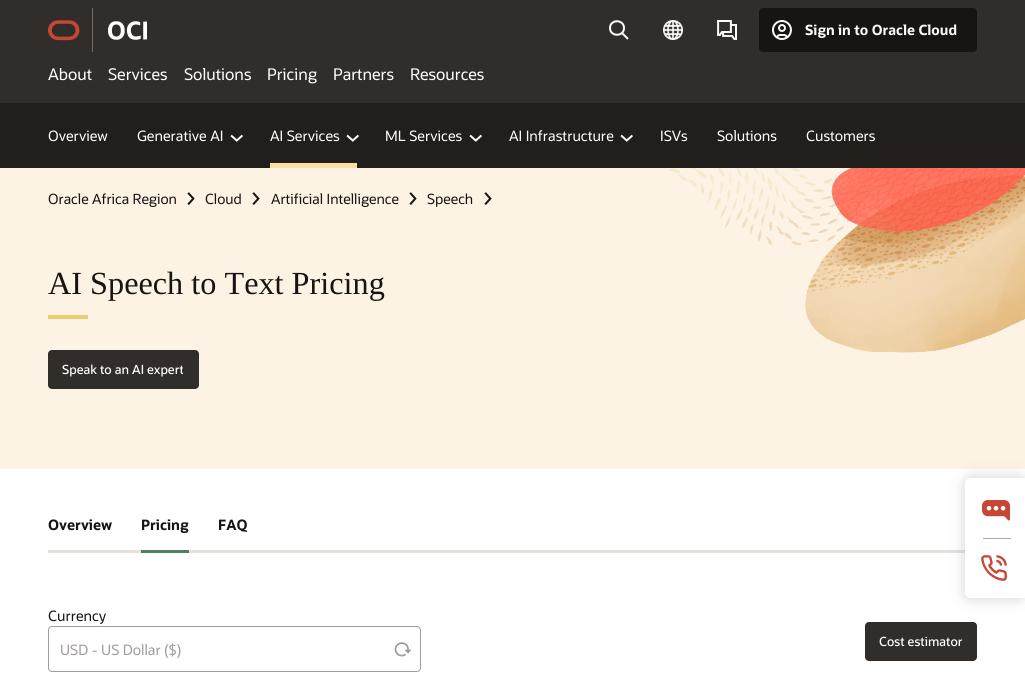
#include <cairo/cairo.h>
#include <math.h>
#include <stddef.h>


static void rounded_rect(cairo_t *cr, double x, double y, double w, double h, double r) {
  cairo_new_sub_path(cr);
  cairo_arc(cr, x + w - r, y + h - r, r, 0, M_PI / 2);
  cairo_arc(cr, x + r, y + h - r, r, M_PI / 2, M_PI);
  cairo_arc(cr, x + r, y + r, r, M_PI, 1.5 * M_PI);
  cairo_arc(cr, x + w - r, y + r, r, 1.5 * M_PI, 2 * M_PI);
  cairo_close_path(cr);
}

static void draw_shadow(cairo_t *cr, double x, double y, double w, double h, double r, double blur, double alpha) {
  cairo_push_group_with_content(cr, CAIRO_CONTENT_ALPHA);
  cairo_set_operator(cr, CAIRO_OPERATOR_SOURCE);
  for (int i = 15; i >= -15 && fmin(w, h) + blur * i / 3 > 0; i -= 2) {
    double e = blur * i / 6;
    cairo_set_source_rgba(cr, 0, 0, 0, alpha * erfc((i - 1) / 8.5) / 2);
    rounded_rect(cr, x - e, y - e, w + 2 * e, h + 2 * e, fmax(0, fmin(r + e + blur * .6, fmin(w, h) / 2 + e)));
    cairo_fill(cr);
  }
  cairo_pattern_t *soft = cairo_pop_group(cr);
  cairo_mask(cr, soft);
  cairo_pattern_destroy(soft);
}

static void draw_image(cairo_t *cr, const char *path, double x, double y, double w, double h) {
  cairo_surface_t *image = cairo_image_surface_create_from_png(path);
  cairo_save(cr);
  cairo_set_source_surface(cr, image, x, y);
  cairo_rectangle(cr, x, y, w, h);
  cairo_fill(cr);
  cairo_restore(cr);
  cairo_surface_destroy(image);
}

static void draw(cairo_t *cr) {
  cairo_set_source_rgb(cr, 1, 1, 1);
  cairo_paint(cr);
  cairo_set_source_rgb(cr, 49 / 255.0, 45 / 255.0, 42 / 255.0);
  cairo_rectangle(cr, 0, 0, 1025, 103);
  cairo_fill(cr);
  draw_image(cr, "images/1.png", 48, 20, 32, 21);
  cairo_set_source_rgb(cr, 110 / 255.0, 106 / 255.0, 104 / 255.0);
  cairo_rectangle(cr, 92, 8, 1, 44);
  cairo_fill(cr);
  draw_image(cr, "images/2.png", 108, 21, 39, 19);
  cairo_new_path(cr);
  cairo_move_to(cr, 622, 33);
  cairo_line_to(cr, 628, 39);
  cairo_move_to(cr, 624, 28);
  cairo_curve_to(cr, 624, 37, 610, 37, 610, 28);
  cairo_curve_to(cr, 610, 19, 624, 19, 624, 28);
  cairo_close_path(cr);
  cairo_set_source_rgb(cr, 251 / 255.0, 249 / 255.0, 248 / 255.0);
  cairo_stroke(cr);
  draw_image(cr, "images/3.png", 663, 20, 20, 20);
  draw_image(cr, "images/4.png", 717, 20, 20, 20);
  cairo_set_source_rgb(cr, 22 / 255.0, 21 / 255.0, 19 / 255.0);
  rounded_rect(cr, 759, 8, 218, 44, 4);
  cairo_fill(cr);
  draw_image(cr, "images/5.png", 772, 20, 20, 20);
  cairo_set_source_rgb(cr, 32 / 255.0, 30 / 255.0, 28 / 255.0);
  cairo_rectangle(cr, 0, 103, 1025, 1);
  cairo_fill(cr);
  cairo_set_source_rgb(cr, 33 / 255.0, 30 / 255.0, 28 / 255.0);
  cairo_rectangle(cr, 0, 104, 1025, 64);
  cairo_fill(cr);
  draw_image(cr, "images/6.png", 230, 134, 13, 8);
  draw_image(cr, "images/6.png", 346, 134, 13, 8);
  cairo_set_source_rgb(cr, 247 / 255.0, 224 / 255.0, 161 / 255.0);
  cairo_rectangle(cr, 270, 163, 87, 5);
  cairo_fill(cr);
  draw_image(cr, "images/6.png", 469, 134, 13, 8);
  draw_image(cr, "images/6.png", 620, 134, 13, 8);
  cairo_set_source_rgb(cr, 253 / 255.0, 243 / 255.0, 228 / 255.0);
  cairo_rectangle(cr, 0, 168, 1025, 301);
  cairo_fill(cr);
  draw_image(cr, "images/7.png", 187, 192, 8, 13);
  draw_image(cr, "images/7.png", 252, 192, 8, 13);
  draw_image(cr, "images/7.png", 409, 192, 8, 13);
  draw_image(cr, "images/7.png", 484, 192, 8, 13);
  cairo_set_source_rgb(cr, 240 / 255.0, 204 / 255.0, 113 / 255.0);
  cairo_rectangle(cr, 48, 315, 40, 4);
  cairo_fill(cr);
  cairo_set_source_rgb(cr, 49 / 255.0, 45 / 255.0, 42 / 255.0);
  rounded_rect(cr, 48, 350, 151, 39, 4);
  cairo_fill(cr);
  draw_image(cr, "images/8.png", 669, 168, 356, 185);
  cairo_set_source_rgb(cr, 228 / 255.0, 225 / 255.0, 221 / 255.0);
  cairo_rectangle(cr, 48, 550, 917, 3);
  cairo_fill(cr);
  cairo_set_source_rgb(cr, 76 / 255.0, 130 / 255.0, 92 / 255.0);
  cairo_rectangle(cr, 141, 550, 48, 3);
  cairo_fill(cr);
  rounded_rect(cr, 48.5, 626.5, 372, 45, 3.5);
  cairo_set_source_rgb(cr, 162 / 255.0, 157 / 255.0, 154 / 255.0);
  cairo_set_line_width(cr, 1);
  cairo_stroke(cr);
  draw_image(cr, "images/9.png", 394, 642, 17, 15);
  cairo_set_source_rgb(cr, 49 / 255.0, 45 / 255.0, 42 / 255.0);
  rounded_rect(cr, 865, 622, 112, 39, 4);
  cairo_fill(cr);
  cairo_set_source_rgb(cr, 0, 0, 0);
  draw_shadow(cr, 965, 478, 60, 120, 6, 8, 0.17);
  cairo_set_source_rgb(cr, 1, 1, 1);
  cairo_new_path(cr);
  cairo_move_to(cr, 971, 478);
  cairo_line_to(cr, 1025, 478);
  cairo_line_to(cr, 1025, 598);
  cairo_line_to(cr, 971, 598);
  cairo_curve_to(cr, 967.5, 598, 965, 595.5, 965, 592);
  cairo_line_to(cr, 965, 484);
  cairo_curve_to(cr, 965, 480.5, 967.5, 478, 971, 478);
  cairo_close_path(cr);
  cairo_fill(cr);
  draw_image(cr, "images/10.png", 982, 500, 28, 21);
  cairo_set_source_rgb(cr, 174 / 255.0, 168 / 255.0, 162 / 255.0);
  cairo_rectangle(cr, 983, 538, 28, 1);
  cairo_fill(cr);
  draw_image(cr, "images/11.png", 981, 555, 26, 26);
  cairo_select_font_face(cr, "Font", CAIRO_FONT_SLANT_NORMAL, CAIRO_FONT_WEIGHT_BOLD);
  cairo_set_font_size(cr, 14);
  cairo_set_source_rgb(cr, 251 / 255.0, 249 / 255.0, 248 / 255.0);
  cairo_move_to(cr, 805, 35);
  cairo_show_text(cr, "Sign in to Oracle Cloud");
  cairo_select_font_face(cr, "Font", CAIRO_FONT_SLANT_NORMAL, CAIRO_FONT_WEIGHT_NORMAL);
  cairo_set_font_size(cr, 16);
  cairo_set_source_rgb(cr, 1, 1, 1);
  cairo_move_to(cr, 48, 80);
  cairo_show_text(cr, "About");
  cairo_move_to(cr, 108, 80);
  cairo_show_text(cr, "Services");
  cairo_move_to(cr, 184, 80);
  cairo_show_text(cr, "Solutions");
  cairo_move_to(cr, 267, 80);
  cairo_show_text(cr, "Pricing");
  cairo_move_to(cr, 333, 80);
  cairo_show_text(cr, "Partners");
  cairo_move_to(cr, 410, 80);
  cairo_show_text(cr, "Resources");
  cairo_set_font_size(cr, 14.25);
  cairo_move_to(cr, 48, 141);
  cairo_show_text(cr, "Overview");
  cairo_move_to(cr, 137, 141);
  cairo_show_text(cr, "Generative AI");
  cairo_move_to(cr, 270, 141);
  cairo_show_text(cr, "AI Services");
  cairo_move_to(cr, 385, 141);
  cairo_show_text(cr, "ML Services");
  cairo_move_to(cr, 509, 141);
  cairo_show_text(cr, "AI Infrastructure");
  cairo_move_to(cr, 660, 141);
  cairo_show_text(cr, "ISVs");
  cairo_move_to(cr, 717, 141);
  cairo_show_text(cr, "Solutions");
  cairo_move_to(cr, 806, 141);
  cairo_show_text(cr, "Customers");
  cairo_set_font_size(cr, 14);
  cairo_set_source_rgb(cr, 22 / 255.0, 21 / 255.0, 19 / 255.0);
  cairo_move_to(cr, 48, 204);
  cairo_show_text(cr, "Oracle Africa Region");
  cairo_move_to(cr, 205, 204);
  cairo_show_text(cr, "Cloud");
  cairo_move_to(cr, 271, 204);
  cairo_show_text(cr, "Artificial Intelligence");
  cairo_move_to(cr, 427, 204);
  cairo_show_text(cr, "Speech");
  cairo_select_font_face(cr, "Liberation Serif", CAIRO_FONT_SLANT_NORMAL, CAIRO_FONT_WEIGHT_NORMAL);
  cairo_set_font_size(cr, 32.25);
  cairo_move_to(cr, 48, 294);
  cairo_show_text(cr, "AI Speech to Text Pricing");
  cairo_select_font_face(cr, "Font Medium", CAIRO_FONT_SLANT_NORMAL, CAIRO_FONT_WEIGHT_NORMAL);
  cairo_set_font_size(cr, 12.5);
  cairo_set_source_rgb(cr, 1, 1, 1);
  cairo_move_to(cr, 62, 374);
  cairo_show_text(cr, "Speak to an AI expert");
  cairo_select_font_face(cr, "Font", CAIRO_FONT_SLANT_NORMAL, CAIRO_FONT_WEIGHT_BOLD);
  cairo_set_font_size(cr, 14.25);
  cairo_set_source_rgb(cr, 22 / 255.0, 21 / 255.0, 19 / 255.0);
  cairo_move_to(cr, 48, 530);
  cairo_show_text(cr, "Overview");
  cairo_move_to(cr, 141, 530);
  cairo_show_text(cr, "Pricing");
  cairo_move_to(cr, 218, 530);
  cairo_show_text(cr, "FAQ");
  cairo_select_font_face(cr, "Font", CAIRO_FONT_SLANT_NORMAL, CAIRO_FONT_WEIGHT_NORMAL);
  cairo_move_to(cr, 48, 621);
  cairo_show_text(cr, "Currency");
  cairo_set_source_rgb(cr, 162 / 255.0, 157 / 255.0, 154 / 255.0);
  cairo_move_to(cr, 60, 655);
  cairo_show_text(cr, "USD - US Dollar ($)");
  cairo_select_font_face(cr, "Font Medium", CAIRO_FONT_SLANT_NORMAL, CAIRO_FONT_WEIGHT_NORMAL);
  cairo_set_font_size(cr, 12.5);
  cairo_set_source_rgb(cr, 1, 1, 1);
  cairo_move_to(cr, 879, 646);
  cairo_show_text(cr, "Cost estimator");
}

int main(void) {
  cairo_surface_t *surface = cairo_image_surface_create(CAIRO_FORMAT_RGB24, 1025, 678);
  cairo_t *cr = cairo_create(surface);
  cairo_font_options_t *options = cairo_font_options_create();
  cairo_font_options_set_hint_metrics(options, CAIRO_HINT_METRICS_OFF);
  cairo_font_options_set_hint_style(options, CAIRO_HINT_STYLE_NONE);
  cairo_set_font_options(cr, options);
  cairo_set_miter_limit(cr, 4);
  draw(cr);
  cairo_surface_write_to_png(surface, "out.png");
  cairo_font_options_destroy(options);
  cairo_destroy(cr);
  cairo_surface_destroy(surface);
  return 0;
}
